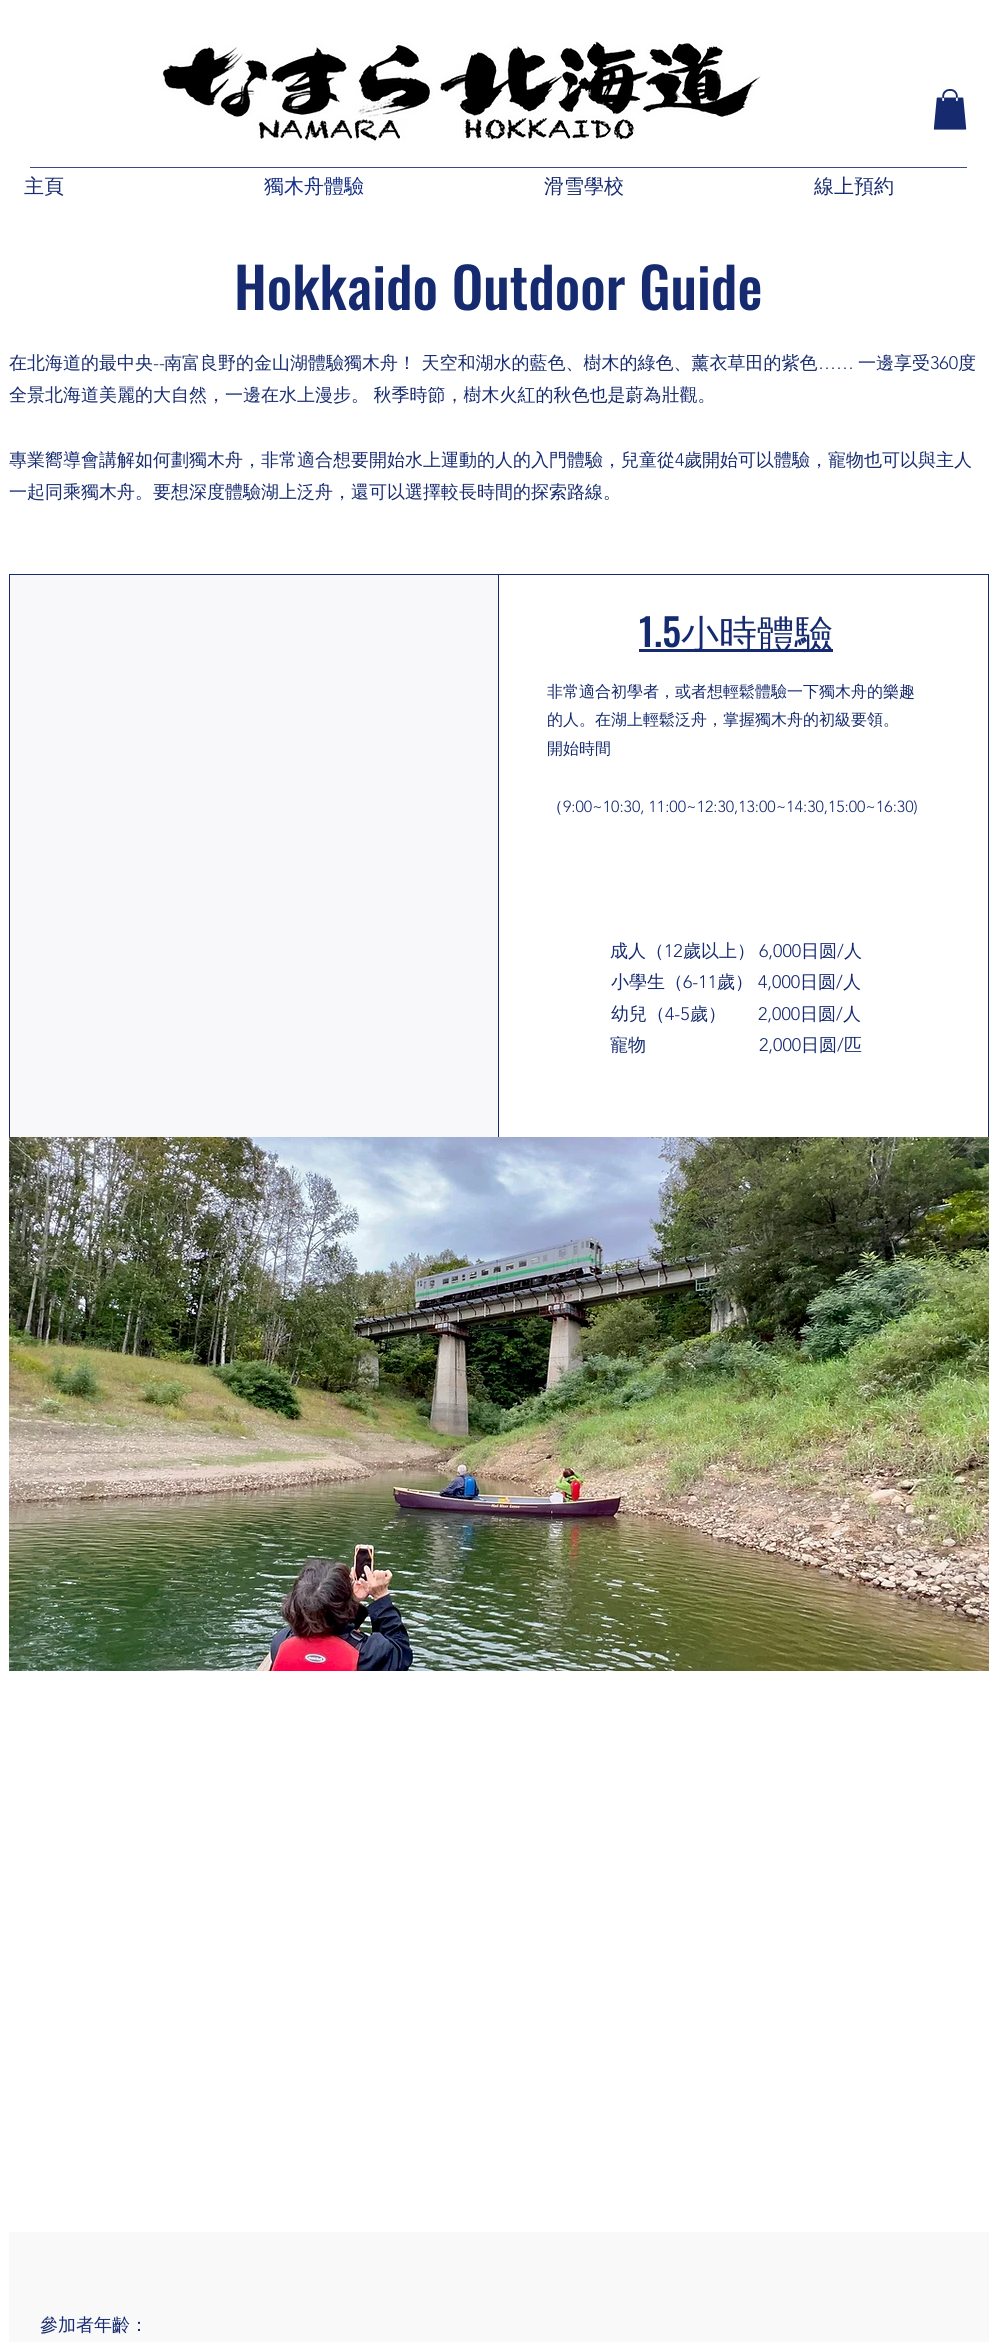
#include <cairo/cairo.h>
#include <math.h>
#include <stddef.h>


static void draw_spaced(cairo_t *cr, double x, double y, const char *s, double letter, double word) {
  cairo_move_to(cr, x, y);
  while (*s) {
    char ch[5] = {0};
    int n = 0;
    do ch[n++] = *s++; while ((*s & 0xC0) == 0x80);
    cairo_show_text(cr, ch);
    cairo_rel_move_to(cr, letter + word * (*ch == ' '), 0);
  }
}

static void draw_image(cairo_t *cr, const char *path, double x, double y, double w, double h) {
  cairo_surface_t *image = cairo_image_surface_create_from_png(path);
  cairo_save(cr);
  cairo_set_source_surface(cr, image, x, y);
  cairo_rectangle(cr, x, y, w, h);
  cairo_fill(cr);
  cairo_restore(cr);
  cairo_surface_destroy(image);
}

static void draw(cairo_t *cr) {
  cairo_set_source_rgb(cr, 1, 1, 1);
  cairo_paint(cr);
  draw_image(cr, "images/1.png", 162, 41, 599, 100);
  draw_image(cr, "images/2.png", 933, 89, 34, 41);
  cairo_set_source_rgb(cr, 57 / 255.0, 75 / 255.0, 133 / 255.0);
  cairo_rectangle(cr, 30, 167, 937, 1);
  cairo_fill(cr);
  cairo_set_source_rgb(cr, 22 / 255.0, 43 / 255.0, 111 / 255.0);
  cairo_rectangle(cr, 9, 574, 980, 563);
  cairo_fill(cr);
  cairo_set_source_rgb(cr, 248 / 255.0, 247 / 255.0, 249 / 255.0);
  cairo_rectangle(cr, 10, 575, 488, 562);
  cairo_fill(cr);
  cairo_set_source_rgb(cr, 1, 1, 1);
  cairo_rectangle(cr, 499, 575, 489, 562);
  cairo_fill(cr);
  cairo_set_source_rgb(cr, 22 / 255.0, 43 / 255.0, 111 / 255.0);
  cairo_rectangle(cr, 639, 649, 194, 3);
  cairo_fill(cr);
  draw_image(cr, "images/3.png", 9, 1137, 980, 534);
  cairo_set_source_rgb(cr, 249 / 255.0, 249 / 255.0, 250 / 255.0);
  cairo_rectangle(cr, 9, 2232, 980, 110);
  cairo_fill(cr);
  cairo_select_font_face(cr, "WenQuanYi Zen Hei Medium", CAIRO_FONT_SLANT_NORMAL, CAIRO_FONT_WEIGHT_NORMAL);
  cairo_set_font_size(cr, 20);
  cairo_set_source_rgb(cr, 22 / 255.0, 43 / 255.0, 111 / 255.0);
  cairo_move_to(cr, 24, 193);
  cairo_show_text(cr, "主頁");
  cairo_set_source_rgb(cr, 20 / 255.0, 46 / 255.0, 132 / 255.0);
  cairo_move_to(cr, 264, 193);
  cairo_show_text(cr, "獨木舟體驗");
  cairo_set_source_rgb(cr, 22 / 255.0, 43 / 255.0, 111 / 255.0);
  cairo_move_to(cr, 544, 193);
  cairo_show_text(cr, "滑雪學校");
  cairo_move_to(cr, 814, 193);
  cairo_show_text(cr, "線上預約");
  cairo_select_font_face(cr, "Oswald Medium", CAIRO_FONT_SLANT_NORMAL, CAIRO_FONT_WEIGHT_NORMAL);
  cairo_set_font_size(cr, 56);
  cairo_move_to(cr, 234, 310);
  cairo_show_text(cr, "Hokkaido Outdoor Guide");
  cairo_select_font_face(cr, "WenQuanYi Zen Hei Medium", CAIRO_FONT_SLANT_NORMAL, CAIRO_FONT_WEIGHT_NORMAL);
  cairo_set_font_size(cr, 18);
  cairo_move_to(cr, 9, 369);
  cairo_show_text(cr, "在北海道的最中央");
  cairo_select_font_face(cr, "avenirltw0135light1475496 Light", CAIRO_FONT_SLANT_NORMAL, CAIRO_FONT_WEIGHT_NORMAL);
  cairo_move_to(cr, 153, 369);
  cairo_show_text(cr, "--");
  cairo_select_font_face(cr, "WenQuanYi Zen Hei Medium", CAIRO_FONT_SLANT_NORMAL, CAIRO_FONT_WEIGHT_NORMAL);
  cairo_move_to(cr, 164, 369);
  cairo_show_text(cr, "南富良野的金山湖體驗獨木舟！ 天空和湖水的藍色、樹木的綠色、薰衣草田的紫色");
  cairo_move_to(cr, 858, 369);
  cairo_show_text(cr, "一邊享受");
  cairo_select_font_face(cr, "avenirltw0135light1475496 Light", CAIRO_FONT_SLANT_NORMAL, CAIRO_FONT_WEIGHT_NORMAL);
  cairo_move_to(cr, 930, 369);
  cairo_show_text(cr, "360");
  cairo_select_font_face(cr, "WenQuanYi Zen Hei Medium", CAIRO_FONT_SLANT_NORMAL, CAIRO_FONT_WEIGHT_NORMAL);
  cairo_move_to(cr, 958, 369);
  cairo_show_text(cr, "度");
  cairo_select_font_face(cr, "avenirltw0135light1475496 Light", CAIRO_FONT_SLANT_NORMAL, CAIRO_FONT_WEIGHT_NORMAL);
  cairo_move_to(cr, 818, 369);
  cairo_show_text(cr, "……");
  cairo_select_font_face(cr, "WenQuanYi Zen Hei Medium", CAIRO_FONT_SLANT_NORMAL, CAIRO_FONT_WEIGHT_NORMAL);
  draw_spaced(cr, 9, 401, "全景北海道美麗的大自然，一邊在水上漫步。 秋季時節，樹木火紅的秋色也是蔚為壯觀。", 0, -1);
  cairo_move_to(cr, 9, 466);
  cairo_show_text(cr, "專業嚮導會講解如何劃獨木舟，非常適合想要開始水上運動的人的入門體驗，兒童從");
  cairo_select_font_face(cr, "avenirltw0135light1475496 Light", CAIRO_FONT_SLANT_NORMAL, CAIRO_FONT_WEIGHT_NORMAL);
  cairo_move_to(cr, 675, 466);
  cairo_show_text(cr, "4");
  cairo_select_font_face(cr, "WenQuanYi Zen Hei Medium", CAIRO_FONT_SLANT_NORMAL, CAIRO_FONT_WEIGHT_NORMAL);
  cairo_move_to(cr, 684, 466);
  cairo_show_text(cr, "歲開始可以體驗，寵物也可以與主人");
  cairo_move_to(cr, 9, 498);
  cairo_show_text(cr, "一起同乘獨木舟。要想深度體驗湖上泛舟，還可以選擇較長時間的探索路線。");
  cairo_select_font_face(cr, "Oswald Medium", CAIRO_FONT_SLANT_NORMAL, CAIRO_FONT_WEIGHT_NORMAL);
  cairo_set_font_size(cr, 38);
  cairo_move_to(cr, 639, 647);
  cairo_show_text(cr, "1.5");
  cairo_select_font_face(cr, "WenQuanYi Zen Hei Medium", CAIRO_FONT_SLANT_NORMAL, CAIRO_FONT_WEIGHT_NORMAL);
  cairo_move_to(cr, 681, 647);
  cairo_show_text(cr, "小時體驗");
  cairo_set_font_size(cr, 16);
  cairo_move_to(cr, 547, 697);
  cairo_show_text(cr, "非常適合初學者，或者想輕鬆體驗一下獨木舟的樂趣");
  cairo_move_to(cr, 547, 725);
  cairo_show_text(cr, "的人。在湖上輕鬆泛舟，掌握獨木舟的初級要領。");
  cairo_move_to(cr, 547, 754);
  cairo_show_text(cr, "開始時間");
  cairo_move_to(cr, 547, 812);
  cairo_show_text(cr, "（");
  cairo_select_font_face(cr, "avenirltw0135light1475496 Light", CAIRO_FONT_SLANT_NORMAL, CAIRO_FONT_WEIGHT_NORMAL);
  cairo_move_to(cr, 563, 812);
  cairo_show_text(cr, "9:00~10:30, 11:00~12:30,13:00~14:30,15:00~16:30)");
  cairo_select_font_face(cr, "WenQuanYi Zen Hei Medium", CAIRO_FONT_SLANT_NORMAL, CAIRO_FONT_WEIGHT_NORMAL);
  cairo_set_font_size(cr, 18);
  cairo_move_to(cr, 610, 957);
  cairo_show_text(cr, "成人（");
  cairo_select_font_face(cr, "avenirltw0135light1475496 Light", CAIRO_FONT_SLANT_NORMAL, CAIRO_FONT_WEIGHT_NORMAL);
  cairo_move_to(cr, 664, 957);
  cairo_show_text(cr, "12");
  cairo_select_font_face(cr, "WenQuanYi Zen Hei Medium", CAIRO_FONT_SLANT_NORMAL, CAIRO_FONT_WEIGHT_NORMAL);
  cairo_move_to(cr, 683, 957);
  cairo_show_text(cr, "歲以上）");
  cairo_select_font_face(cr, "avenirltw0135light1475496 Light", CAIRO_FONT_SLANT_NORMAL, CAIRO_FONT_WEIGHT_NORMAL);
  cairo_move_to(cr, 759, 957);
  cairo_show_text(cr, "6,000");
  cairo_select_font_face(cr, "WenQuanYi Zen Hei Medium", CAIRO_FONT_SLANT_NORMAL, CAIRO_FONT_WEIGHT_NORMAL);
  cairo_move_to(cr, 801, 957);
  cairo_show_text(cr, "日圆");
  cairo_select_font_face(cr, "avenirltw0135light1475496 Light", CAIRO_FONT_SLANT_NORMAL, CAIRO_FONT_WEIGHT_NORMAL);
  cairo_move_to(cr, 837, 957);
  cairo_show_text(cr, "/");
  cairo_select_font_face(cr, "WenQuanYi Zen Hei Medium", CAIRO_FONT_SLANT_NORMAL, CAIRO_FONT_WEIGHT_NORMAL);
  cairo_move_to(cr, 844, 957);
  cairo_show_text(cr, "人");
  cairo_move_to(cr, 611, 988);
  cairo_show_text(cr, "小學生（");
  cairo_select_font_face(cr, "avenirltw0135light1475496 Light", CAIRO_FONT_SLANT_NORMAL, CAIRO_FONT_WEIGHT_NORMAL);
  cairo_move_to(cr, 683, 988);
  cairo_show_text(cr, "6-11");
  cairo_select_font_face(cr, "WenQuanYi Zen Hei Medium", CAIRO_FONT_SLANT_NORMAL, CAIRO_FONT_WEIGHT_NORMAL);
  cairo_move_to(cr, 717, 988);
  cairo_show_text(cr, "歲）");
  cairo_select_font_face(cr, "avenirltw0135light1475496 Light", CAIRO_FONT_SLANT_NORMAL, CAIRO_FONT_WEIGHT_NORMAL);
  cairo_move_to(cr, 758, 988);
  cairo_show_text(cr, "4,000");
  cairo_select_font_face(cr, "WenQuanYi Zen Hei Medium", CAIRO_FONT_SLANT_NORMAL, CAIRO_FONT_WEIGHT_NORMAL);
  cairo_move_to(cr, 800, 988);
  cairo_show_text(cr, "日圆");
  cairo_select_font_face(cr, "avenirltw0135light1475496 Light", CAIRO_FONT_SLANT_NORMAL, CAIRO_FONT_WEIGHT_NORMAL);
  cairo_move_to(cr, 836, 988);
  cairo_show_text(cr, "/");
  cairo_select_font_face(cr, "WenQuanYi Zen Hei Medium", CAIRO_FONT_SLANT_NORMAL, CAIRO_FONT_WEIGHT_NORMAL);
  cairo_move_to(cr, 843, 988);
  cairo_show_text(cr, "人");
  cairo_move_to(cr, 611, 1020);
  cairo_show_text(cr, "幼兒（");
  cairo_select_font_face(cr, "avenirltw0135light1475496 Light", CAIRO_FONT_SLANT_NORMAL, CAIRO_FONT_WEIGHT_NORMAL);
  cairo_move_to(cr, 665, 1020);
  cairo_show_text(cr, "4-5");
  cairo_select_font_face(cr, "WenQuanYi Zen Hei Medium", CAIRO_FONT_SLANT_NORMAL, CAIRO_FONT_WEIGHT_NORMAL);
  cairo_move_to(cr, 690, 1020);
  cairo_show_text(cr, "歲）");
  cairo_select_font_face(cr, "avenirltw0135light1475496 Light", CAIRO_FONT_SLANT_NORMAL, CAIRO_FONT_WEIGHT_NORMAL);
  cairo_move_to(cr, 758, 1020);
  cairo_show_text(cr, "2,000");
  cairo_select_font_face(cr, "WenQuanYi Zen Hei Medium", CAIRO_FONT_SLANT_NORMAL, CAIRO_FONT_WEIGHT_NORMAL);
  cairo_move_to(cr, 800, 1020);
  cairo_show_text(cr, "日圆");
  cairo_select_font_face(cr, "avenirltw0135light1475496 Light", CAIRO_FONT_SLANT_NORMAL, CAIRO_FONT_WEIGHT_NORMAL);
  cairo_move_to(cr, 836, 1020);
  cairo_show_text(cr, "/");
  cairo_select_font_face(cr, "WenQuanYi Zen Hei Medium", CAIRO_FONT_SLANT_NORMAL, CAIRO_FONT_WEIGHT_NORMAL);
  cairo_move_to(cr, 843, 1020);
  cairo_show_text(cr, "人");
  cairo_move_to(cr, 610, 1051);
  cairo_show_text(cr, "寵物");
  cairo_select_font_face(cr, "avenirltw0135light1475496 Light", CAIRO_FONT_SLANT_NORMAL, CAIRO_FONT_WEIGHT_NORMAL);
  cairo_move_to(cr, 759, 1051);
  cairo_show_text(cr, "2,000");
  cairo_select_font_face(cr, "WenQuanYi Zen Hei Medium", CAIRO_FONT_SLANT_NORMAL, CAIRO_FONT_WEIGHT_NORMAL);
  cairo_move_to(cr, 801, 1051);
  cairo_show_text(cr, "日圆");
  cairo_select_font_face(cr, "avenirltw0135light1475496 Light", CAIRO_FONT_SLANT_NORMAL, CAIRO_FONT_WEIGHT_NORMAL);
  cairo_move_to(cr, 837, 1051);
  cairo_show_text(cr, "/");
  cairo_select_font_face(cr, "WenQuanYi Zen Hei Medium", CAIRO_FONT_SLANT_NORMAL, CAIRO_FONT_WEIGHT_NORMAL);
  cairo_move_to(cr, 844, 1051);
  cairo_show_text(cr, "匹");
  cairo_move_to(cr, 40, 2331);
  cairo_show_text(cr, "參加者年齡：");
}

int main(void) {
  cairo_surface_t *surface = cairo_image_surface_create(CAIRO_FORMAT_RGB24, 997, 2342);
  cairo_t *cr = cairo_create(surface);
  cairo_font_options_t *options = cairo_font_options_create();
  cairo_font_options_set_hint_metrics(options, CAIRO_HINT_METRICS_OFF);
  cairo_font_options_set_hint_style(options, CAIRO_HINT_STYLE_NONE);
  cairo_set_font_options(cr, options);
  cairo_set_miter_limit(cr, 4);
  draw(cr);
  cairo_surface_write_to_png(surface, "out.png");
  cairo_font_options_destroy(options);
  cairo_destroy(cr);
  cairo_surface_destroy(surface);
  return 0;
}
